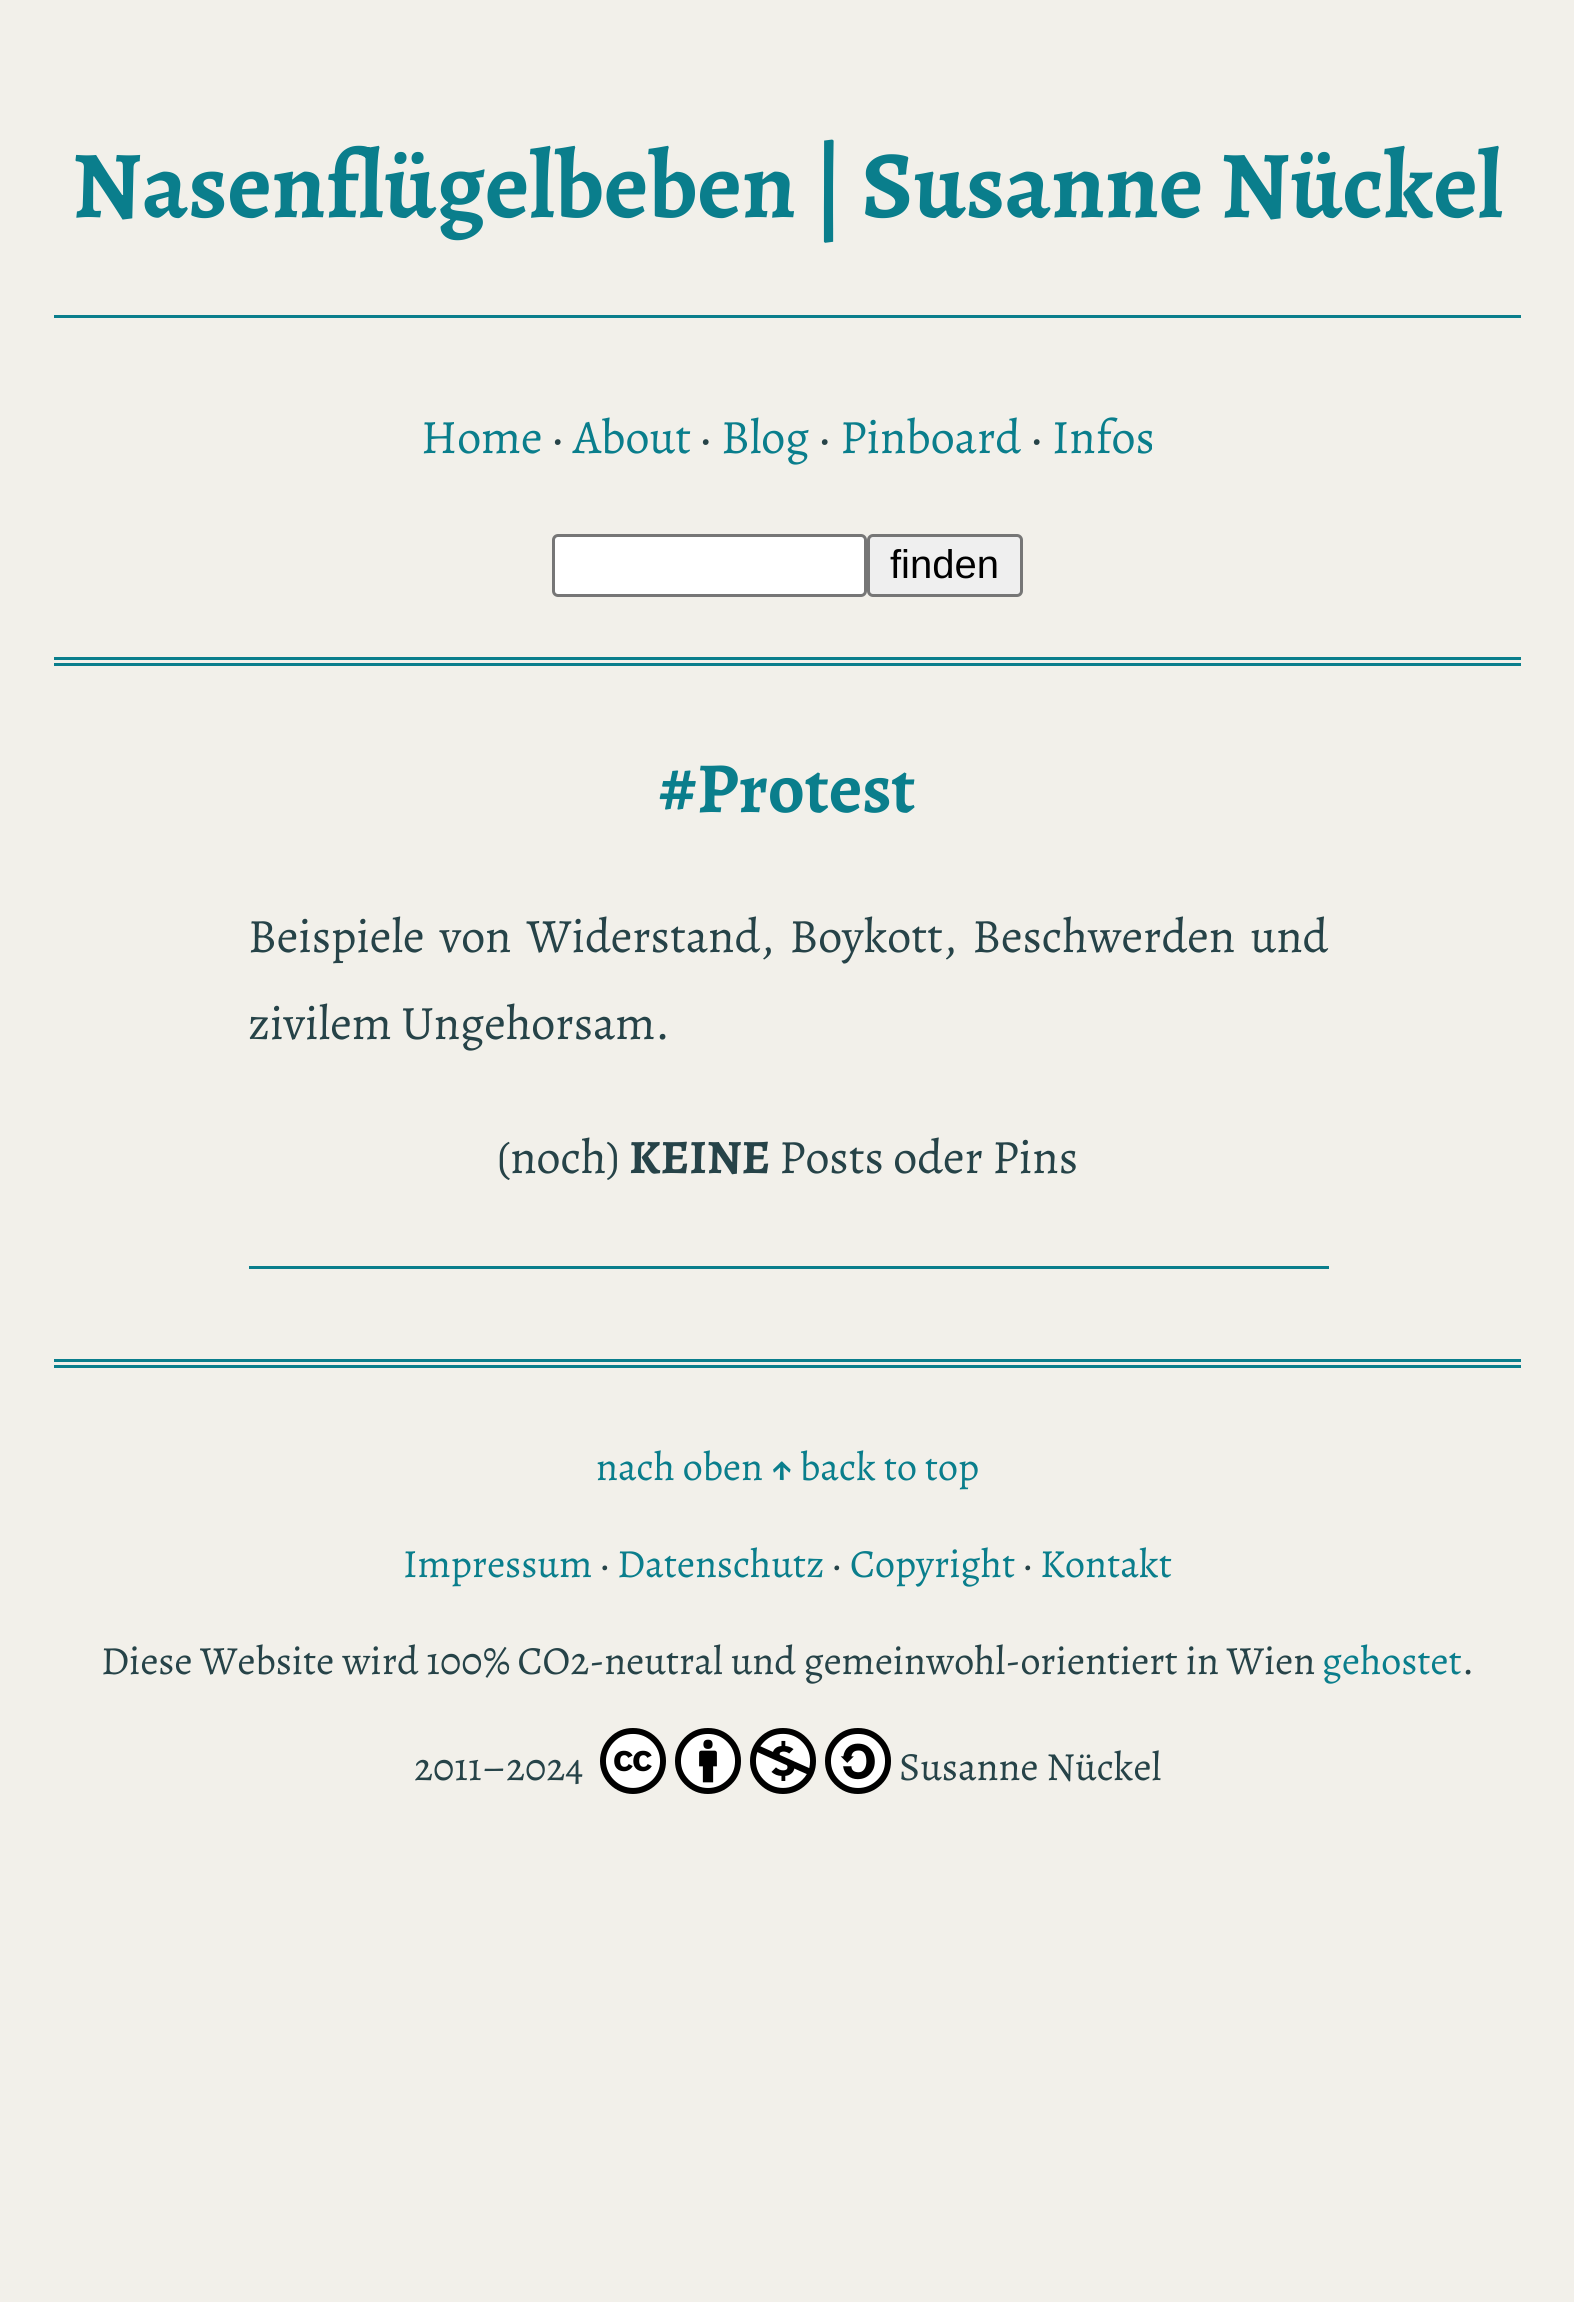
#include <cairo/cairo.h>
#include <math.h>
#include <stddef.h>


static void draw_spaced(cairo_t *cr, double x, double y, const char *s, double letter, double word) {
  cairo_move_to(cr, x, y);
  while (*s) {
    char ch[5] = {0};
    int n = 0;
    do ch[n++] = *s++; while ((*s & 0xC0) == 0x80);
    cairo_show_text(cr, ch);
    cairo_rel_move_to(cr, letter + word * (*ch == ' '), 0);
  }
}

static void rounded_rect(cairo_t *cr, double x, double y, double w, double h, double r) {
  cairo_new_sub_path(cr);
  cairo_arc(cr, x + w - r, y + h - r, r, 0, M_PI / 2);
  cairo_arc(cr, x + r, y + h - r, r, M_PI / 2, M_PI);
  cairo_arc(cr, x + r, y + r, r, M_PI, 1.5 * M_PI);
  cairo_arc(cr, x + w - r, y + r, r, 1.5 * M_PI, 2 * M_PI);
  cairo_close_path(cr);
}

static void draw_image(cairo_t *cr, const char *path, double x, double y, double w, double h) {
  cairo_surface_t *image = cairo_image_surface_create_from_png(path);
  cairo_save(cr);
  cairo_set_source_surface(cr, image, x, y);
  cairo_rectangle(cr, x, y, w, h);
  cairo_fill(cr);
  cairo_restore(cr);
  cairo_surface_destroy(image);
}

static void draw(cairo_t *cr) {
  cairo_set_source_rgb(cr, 242 / 255.0, 240 / 255.0, 234 / 255.0);
  cairo_paint(cr);
  cairo_set_source_rgb(cr, 10 / 255.0, 126 / 255.0, 140 / 255.0);
  cairo_rectangle(cr, 54, 315, 1467, 3);
  cairo_fill(cr);
  cairo_rectangle(cr, 54, 657, 1467, 3);
  cairo_fill(cr);
  cairo_set_source_rgb(cr, 1, 1, 1);
  rounded_rect(cr, 553.5, 535.5, 312, 60, 4.5);
  cairo_fill_preserve(cr);
  cairo_set_source_rgb(cr, 118 / 255.0, 118 / 255.0, 118 / 255.0);
  cairo_set_line_width(cr, 3);
  cairo_stroke(cr);
  cairo_set_source_rgb(cr, 239 / 255.0, 239 / 255.0, 239 / 255.0);
  rounded_rect(cr, 868.5, 535.5, 153, 60, 4.5);
  cairo_fill_preserve(cr);
  cairo_set_source_rgb(cr, 118 / 255.0, 118 / 255.0, 118 / 255.0);
  cairo_stroke(cr);
  cairo_set_source_rgb(cr, 10 / 255.0, 126 / 255.0, 140 / 255.0);
  cairo_rectangle(cr, 54, 663, 1467, 3);
  cairo_fill(cr);
  cairo_rectangle(cr, 54, 1359, 1467, 3);
  cairo_fill(cr);
  cairo_rectangle(cr, 249, 1266, 1080, 3);
  cairo_fill(cr);
  cairo_rectangle(cr, 54, 1365, 1467, 3);
  cairo_fill(cr);
  draw_image(cr, "images/1.png", 600, 1728, 66, 66);
  draw_image(cr, "images/2.png", 675, 1728, 66, 66);
  draw_image(cr, "images/3.png", 750, 1728, 66, 66);
  draw_image(cr, "images/4.png", 825, 1728, 66, 66);
  cairo_select_font_face(cr, "Alegreya", CAIRO_FONT_SLANT_NORMAL, CAIRO_FONT_WEIGHT_BOLD);
  cairo_set_font_size(cr, 96);
  cairo_move_to(cr, 72, 217);
  cairo_show_text(cr, "Nasenflügelbeben | Susanne Nückel");
  cairo_select_font_face(cr, "Alegreya", CAIRO_FONT_SLANT_NORMAL, CAIRO_FONT_WEIGHT_NORMAL);
  cairo_set_font_size(cr, 48);
  cairo_move_to(cr, 421, 453);
  cairo_show_text(cr, "Home");
  cairo_set_source_rgb(cr, 38 / 255.0, 67 / 255.0, 72 / 255.0);
  cairo_move_to(cr, 552, 453);
  cairo_show_text(cr, "·");
  cairo_set_source_rgb(cr, 10 / 255.0, 126 / 255.0, 140 / 255.0);
  cairo_move_to(cr, 573, 453);
  cairo_show_text(cr, "About");
  cairo_set_source_rgb(cr, 38 / 255.0, 67 / 255.0, 72 / 255.0);
  cairo_move_to(cr, 700, 453);
  cairo_show_text(cr, "·");
  cairo_set_source_rgb(cr, 10 / 255.0, 126 / 255.0, 140 / 255.0);
  cairo_move_to(cr, 721, 453);
  cairo_show_text(cr, "Blog");
  cairo_set_source_rgb(cr, 38 / 255.0, 67 / 255.0, 72 / 255.0);
  cairo_move_to(cr, 819, 453);
  cairo_show_text(cr, "·");
  cairo_set_source_rgb(cr, 10 / 255.0, 126 / 255.0, 140 / 255.0);
  cairo_move_to(cr, 840, 453);
  cairo_show_text(cr, "Pinboard");
  cairo_set_source_rgb(cr, 38 / 255.0, 67 / 255.0, 72 / 255.0);
  cairo_move_to(cr, 1031, 453);
  cairo_show_text(cr, "·");
  cairo_set_source_rgb(cr, 10 / 255.0, 126 / 255.0, 140 / 255.0);
  cairo_move_to(cr, 1052, 453);
  cairo_show_text(cr, "Infos");
  cairo_select_font_face(cr, "Liberation Sans", CAIRO_FONT_SLANT_NORMAL, CAIRO_FONT_WEIGHT_NORMAL);
  cairo_set_font_size(cr, 40);
  cairo_set_source_rgb(cr, 0, 0, 0);
  cairo_move_to(cr, 890, 578);
  cairo_show_text(cr, "finden");
  cairo_select_font_face(cr, "Alegreya", CAIRO_FONT_SLANT_NORMAL, CAIRO_FONT_WEIGHT_BOLD);
  cairo_set_font_size(cr, 72);
  cairo_set_source_rgb(cr, 10 / 255.0, 126 / 255.0, 140 / 255.0);
  cairo_move_to(cr, 659, 812);
  cairo_show_text(cr, "#Protest");
  cairo_select_font_face(cr, "Alegreya", CAIRO_FONT_SLANT_NORMAL, CAIRO_FONT_WEIGHT_NORMAL);
  cairo_set_font_size(cr, 48);
  cairo_set_source_rgb(cr, 38 / 255.0, 67 / 255.0, 72 / 255.0);
  draw_spaced(cr, 248, 952, "Beispiele von Widerstand, Boykott, Beschwerden und", 0, 5.75);
  cairo_move_to(cr, 248, 1039);
  cairo_show_text(cr, "zivilem Ungehorsam.");
  cairo_move_to(cr, 497, 1173);
  cairo_show_text(cr, "(noch)");
  cairo_select_font_face(cr, "Alegreya", CAIRO_FONT_SLANT_NORMAL, CAIRO_FONT_WEIGHT_BOLD);
  cairo_move_to(cr, 629, 1173);
  cairo_show_text(cr, "KEINE");
  cairo_select_font_face(cr, "Alegreya", CAIRO_FONT_SLANT_NORMAL, CAIRO_FONT_WEIGHT_NORMAL);
  cairo_move_to(cr, 779, 1173);
  cairo_show_text(cr, "Posts oder Pins");
  cairo_set_font_size(cr, 40);
  cairo_set_source_rgb(cr, 10 / 255.0, 126 / 255.0, 140 / 255.0);
  cairo_move_to(cr, 596, 1480);
  cairo_show_text(cr, "nach oben");
  cairo_select_font_face(cr, "Alegreya", CAIRO_FONT_SLANT_NORMAL, CAIRO_FONT_WEIGHT_BOLD);
  cairo_move_to(cr, 771, 1480);
  cairo_show_text(cr, "↑");
  cairo_select_font_face(cr, "Alegreya", CAIRO_FONT_SLANT_NORMAL, CAIRO_FONT_WEIGHT_NORMAL);
  cairo_move_to(cr, 800, 1480);
  cairo_show_text(cr, "back to top");
  cairo_move_to(cr, 403, 1577);
  cairo_show_text(cr, "Impressum");
  cairo_set_source_rgb(cr, 38 / 255.0, 67 / 255.0, 72 / 255.0);
  cairo_move_to(cr, 600, 1577);
  cairo_show_text(cr, "·");
  cairo_set_source_rgb(cr, 10 / 255.0, 126 / 255.0, 140 / 255.0);
  cairo_move_to(cr, 617, 1577);
  cairo_show_text(cr, "Datenschutz");
  cairo_set_source_rgb(cr, 38 / 255.0, 67 / 255.0, 72 / 255.0);
  cairo_move_to(cr, 832, 1577);
  cairo_show_text(cr, "·");
  cairo_set_source_rgb(cr, 10 / 255.0, 126 / 255.0, 140 / 255.0);
  cairo_move_to(cr, 850, 1577);
  cairo_show_text(cr, "Copyright");
  cairo_set_source_rgb(cr, 38 / 255.0, 67 / 255.0, 72 / 255.0);
  cairo_move_to(cr, 1023, 1577);
  cairo_show_text(cr, "·");
  cairo_set_source_rgb(cr, 10 / 255.0, 126 / 255.0, 140 / 255.0);
  cairo_move_to(cr, 1040, 1577);
  cairo_show_text(cr, "Kontakt");
  cairo_set_source_rgb(cr, 38 / 255.0, 67 / 255.0, 72 / 255.0);
  cairo_move_to(cr, 101, 1674);
  cairo_show_text(cr, "Diese Website wird 100% CO2-neutral und gemeinwohl-orientiert in Wien");
  cairo_set_source_rgb(cr, 10 / 255.0, 126 / 255.0, 140 / 255.0);
  cairo_move_to(cr, 1322, 1674);
  cairo_show_text(cr, "gehostet");
  cairo_set_source_rgb(cr, 38 / 255.0, 67 / 255.0, 72 / 255.0);
  cairo_move_to(cr, 1462, 1674);
  cairo_show_text(cr, ".");
  cairo_move_to(cr, 414, 1780);
  cairo_show_text(cr, "2011–2024");
  cairo_move_to(cr, 899, 1780);
  cairo_show_text(cr, "Susanne Nückel");
}

int main(void) {
  cairo_surface_t *surface = cairo_image_surface_create(CAIRO_FORMAT_RGB24, 1574, 2302);
  cairo_t *cr = cairo_create(surface);
  cairo_font_options_t *options = cairo_font_options_create();
  cairo_font_options_set_hint_metrics(options, CAIRO_HINT_METRICS_OFF);
  cairo_font_options_set_hint_style(options, CAIRO_HINT_STYLE_NONE);
  cairo_set_font_options(cr, options);
  cairo_set_miter_limit(cr, 4);
  draw(cr);
  cairo_surface_write_to_png(surface, "out.png");
  cairo_font_options_destroy(options);
  cairo_destroy(cr);
  cairo_surface_destroy(surface);
  return 0;
}
